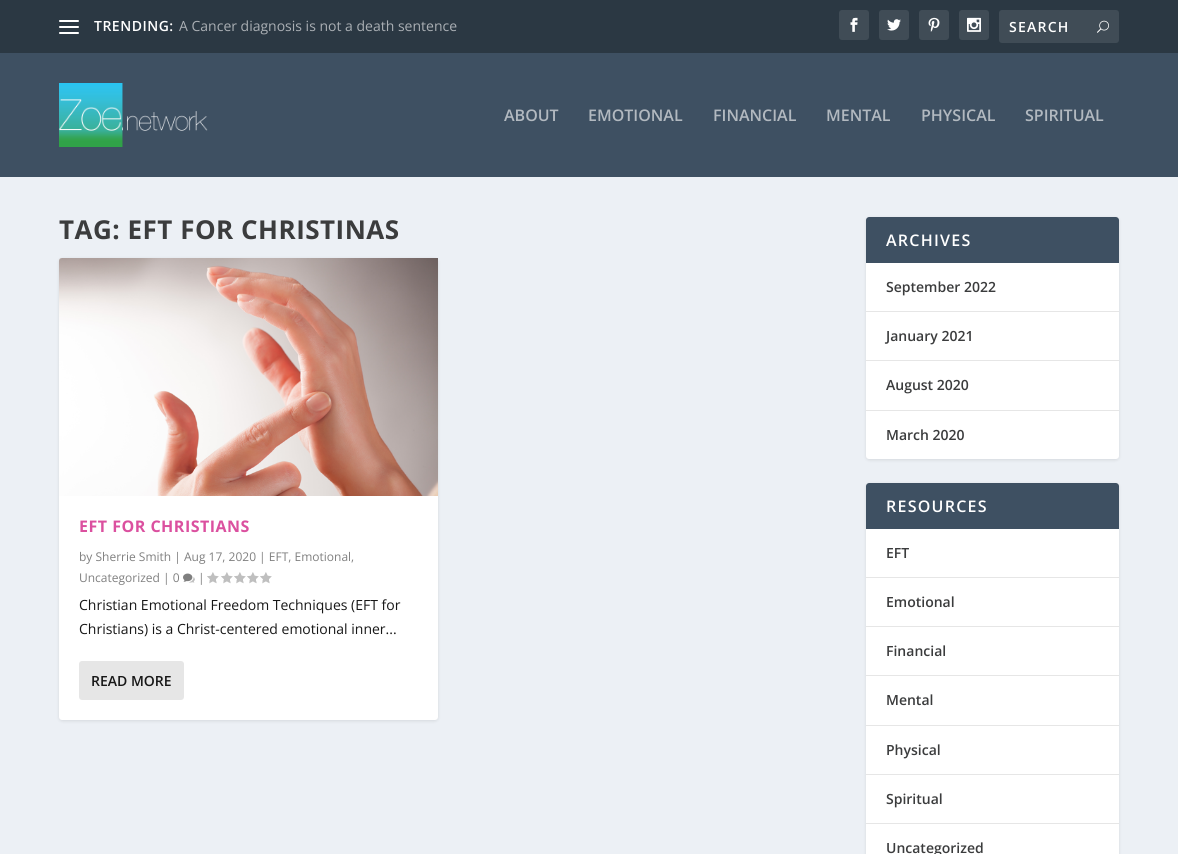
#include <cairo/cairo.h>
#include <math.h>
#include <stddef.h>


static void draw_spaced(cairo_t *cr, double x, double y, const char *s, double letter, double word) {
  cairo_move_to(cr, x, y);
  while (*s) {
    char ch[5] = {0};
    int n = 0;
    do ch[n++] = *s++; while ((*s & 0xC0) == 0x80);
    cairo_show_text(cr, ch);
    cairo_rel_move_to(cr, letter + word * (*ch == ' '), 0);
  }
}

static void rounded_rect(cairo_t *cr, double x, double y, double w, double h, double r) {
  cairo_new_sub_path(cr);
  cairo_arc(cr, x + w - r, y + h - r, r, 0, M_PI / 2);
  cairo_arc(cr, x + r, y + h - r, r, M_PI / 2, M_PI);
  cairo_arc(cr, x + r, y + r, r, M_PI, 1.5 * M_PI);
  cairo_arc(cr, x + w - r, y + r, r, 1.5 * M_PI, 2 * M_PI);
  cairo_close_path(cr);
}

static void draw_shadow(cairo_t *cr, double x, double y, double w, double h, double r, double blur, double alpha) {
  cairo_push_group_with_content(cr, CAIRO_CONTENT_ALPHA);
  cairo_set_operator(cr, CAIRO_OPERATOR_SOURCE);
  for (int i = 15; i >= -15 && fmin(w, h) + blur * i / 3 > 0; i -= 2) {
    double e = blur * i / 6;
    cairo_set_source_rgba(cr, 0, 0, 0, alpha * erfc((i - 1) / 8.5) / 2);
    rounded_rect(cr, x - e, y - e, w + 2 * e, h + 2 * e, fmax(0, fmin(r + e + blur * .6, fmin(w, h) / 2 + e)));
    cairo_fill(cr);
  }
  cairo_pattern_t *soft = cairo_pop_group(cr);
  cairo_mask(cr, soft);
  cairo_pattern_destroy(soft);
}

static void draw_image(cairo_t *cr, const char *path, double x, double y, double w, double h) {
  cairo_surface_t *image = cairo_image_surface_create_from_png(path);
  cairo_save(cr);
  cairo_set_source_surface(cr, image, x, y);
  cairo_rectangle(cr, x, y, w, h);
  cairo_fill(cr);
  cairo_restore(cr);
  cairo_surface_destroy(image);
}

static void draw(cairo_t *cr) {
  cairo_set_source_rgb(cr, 236 / 255.0, 240 / 255.0, 245 / 255.0);
  cairo_paint(cr);
  cairo_set_source_rgb(cr, 43 / 255.0, 56 / 255.0, 67 / 255.0);
  cairo_rectangle(cr, 0, 0, 1178, 53);
  cairo_fill(cr);
  cairo_set_source_rgb(cr, 1, 1, 1);
  rounded_rect(cr, 59, 20, 20, 2, 1);
  cairo_fill(cr);
  rounded_rect(cr, 59, 26, 20, 2, 1);
  cairo_fill(cr);
  rounded_rect(cr, 59, 32, 20, 2, 1);
  cairo_fill(cr);
  cairo_set_source_rgb(cr, 64 / 255.0, 76 / 255.0, 86 / 255.0);
  rounded_rect(cr, 839, 10, 30, 30, 3);
  cairo_fill(cr);
  draw_image(cr, "images/1.png", 850, 17, 8, 15);
  rounded_rect(cr, 879, 10, 30, 30, 3);
  cairo_fill(cr);
  draw_image(cr, "images/2.png", 887, 19, 14, 12);
  rounded_rect(cr, 919, 10, 30, 30, 3);
  cairo_fill(cr);
  draw_image(cr, "images/3.png", 928, 17, 12, 15);
  rounded_rect(cr, 959, 10, 30, 30, 3);
  cairo_fill(cr);
  draw_image(cr, "images/4.png", 967, 17, 14, 15);
  rounded_rect(cr, 999, 10, 120, 33, 3);
  cairo_fill(cr);
  draw_image(cr, "images/5.png", 1097, 20, 12, 13);
  cairo_set_source_rgb(cr, 62 / 255.0, 80 / 255.0, 98 / 255.0);
  cairo_rectangle(cr, 0, 53, 1178, 124);
  cairo_fill(cr);
  draw_image(cr, "images/6.png", 59, 83, 149, 64);
  cairo_set_source_rgb(cr, 0, 0, 0);
  draw_shadow(cr, 59, 259, 379, 462, 3, 1.5, 0.1);
  cairo_set_source_rgb(cr, 1, 1, 1);
  rounded_rect(cr, 59, 258, 379, 462, 3);
  cairo_fill(cr);
  draw_image(cr, "images/7.png", 59, 258, 379, 238);
  draw_image(cr, "images/8.png", 183, 573, 12, 10);
  draw_image(cr, "images/9.png", 207, 572, 12, 12);
  draw_image(cr, "images/9.png", 221, 572, 12, 12);
  draw_image(cr, "images/9.png", 234, 572, 12, 12);
  draw_image(cr, "images/9.png", 247, 572, 12, 12);
  draw_image(cr, "images/9.png", 260, 572, 12, 12);
  cairo_set_source_rgb(cr, 230 / 255.0, 230 / 255.0, 230 / 255.0);
  rounded_rect(cr, 79, 661, 105, 39, 3);
  cairo_fill(cr);
  cairo_set_source_rgb(cr, 0, 0, 0);
  draw_shadow(cr, 866, 218, 253, 242, 3, 1.5, 0.1);
  cairo_set_source_rgb(cr, 1, 1, 1);
  rounded_rect(cr, 866, 217, 253, 242, 3);
  cairo_fill(cr);
  cairo_set_source_rgb(cr, 62 / 255.0, 80 / 255.0, 98 / 255.0);
  cairo_new_path(cr);
  cairo_move_to(cr, 869, 217);
  cairo_line_to(cr, 1116, 217);
  cairo_curve_to(cr, 1117.5, 217, 1119, 218.5, 1119, 220);
  cairo_line_to(cr, 1119, 263);
  cairo_line_to(cr, 866, 263);
  cairo_line_to(cr, 866, 220);
  cairo_curve_to(cr, 866, 218.5, 867.5, 217, 869, 217);
  cairo_close_path(cr);
  cairo_fill(cr);
  cairo_set_source_rgb(cr, 230 / 255.0, 230 / 255.0, 230 / 255.0);
  cairo_rectangle(cr, 866, 311, 253, 1);
  cairo_fill(cr);
  cairo_rectangle(cr, 866, 360, 253, 1);
  cairo_fill(cr);
  cairo_rectangle(cr, 866, 410, 253, 1);
  cairo_fill(cr);
  cairo_set_source_rgb(cr, 0, 0, 0);
  draw_shadow(cr, 866, 484, 253, 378, 3, 1.5, 0.1);
  cairo_set_source_rgb(cr, 1, 1, 1);
  rounded_rect(cr, 866, 483, 253, 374, 3);
  cairo_fill(cr);
  cairo_set_source_rgb(cr, 62 / 255.0, 80 / 255.0, 98 / 255.0);
  cairo_new_path(cr);
  cairo_move_to(cr, 869, 483);
  cairo_line_to(cr, 1116, 483);
  cairo_curve_to(cr, 1117.5, 483, 1119, 484.5, 1119, 486);
  cairo_line_to(cr, 1119, 529);
  cairo_line_to(cr, 866, 529);
  cairo_line_to(cr, 866, 486);
  cairo_curve_to(cr, 866, 484.5, 867.5, 483, 869, 483);
  cairo_close_path(cr);
  cairo_fill(cr);
  cairo_set_source_rgb(cr, 230 / 255.0, 230 / 255.0, 230 / 255.0);
  cairo_rectangle(cr, 866, 577, 253, 1);
  cairo_fill(cr);
  cairo_rectangle(cr, 866, 626, 253, 1);
  cairo_fill(cr);
  cairo_rectangle(cr, 866, 675, 253, 1);
  cairo_fill(cr);
  cairo_rectangle(cr, 866, 725, 253, 1);
  cairo_fill(cr);
  cairo_rectangle(cr, 866, 774, 253, 1);
  cairo_fill(cr);
  cairo_rectangle(cr, 866, 823, 253, 1);
  cairo_fill(cr);
  cairo_select_font_face(cr, "Open Sans SemiBold", CAIRO_FONT_SLANT_NORMAL, CAIRO_FONT_WEIGHT_NORMAL);
  cairo_set_font_size(cr, 14);
  cairo_set_source_rgb(cr, 1, 1, 1);
  draw_spaced(cr, 94, 31, "TRENDING:", 0.5, 0);
  cairo_select_font_face(cr, "Open Sans", CAIRO_FONT_SLANT_NORMAL, CAIRO_FONT_WEIGHT_NORMAL);
  cairo_set_source_rgb(cr, 170 / 255.0, 175 / 255.0, 180 / 255.0);
  cairo_move_to(cr, 179, 31);
  cairo_show_text(cr, "A Cancer diagnosis is not a death sentence");
  cairo_select_font_face(cr, "Open Sans SemiBold", CAIRO_FONT_SLANT_NORMAL, CAIRO_FONT_WEIGHT_NORMAL);
  cairo_set_source_rgb(cr, 1, 1, 1);
  draw_spaced(cr, 1009, 32, "SEARCH", 1.25, 0);
  cairo_set_font_size(cr, 16);
  cairo_set_source_rgb(cr, 178 / 255.0, 185 / 255.0, 192 / 255.0);
  cairo_move_to(cr, 504, 121);
  cairo_show_text(cr, "ABOUT");
  cairo_move_to(cr, 588, 121);
  cairo_show_text(cr, "EMOTIONAL");
  cairo_move_to(cr, 713, 121);
  cairo_show_text(cr, "FINANCIAL");
  cairo_move_to(cr, 826, 121);
  cairo_show_text(cr, "MENTAL");
  cairo_move_to(cr, 921, 121);
  cairo_show_text(cr, "PHYSICAL");
  cairo_move_to(cr, 1025, 121);
  cairo_show_text(cr, "SPIRITUAL");
  cairo_select_font_face(cr, "Open Sans", CAIRO_FONT_SLANT_NORMAL, CAIRO_FONT_WEIGHT_BOLD);
  cairo_set_font_size(cr, 26);
  cairo_set_source_rgb(cr, 59 / 255.0, 60 / 255.0, 61 / 255.0);
  draw_spaced(cr, 59, 239, "TAG: EFT FOR CHRISTINAS", 0.5, 0);
  cairo_set_font_size(cr, 16);
  cairo_set_source_rgb(cr, 219 / 255.0, 80 / 255.0, 159 / 255.0);
  draw_spaced(cr, 79, 532, "EFT FOR CHRISTIANS", 0.5, 0);
  cairo_select_font_face(cr, "Open Sans", CAIRO_FONT_SLANT_NORMAL, CAIRO_FONT_WEIGHT_NORMAL);
  cairo_set_font_size(cr, 12);
  cairo_set_source_rgb(cr, 128 / 255.0, 128 / 255.0, 128 / 255.0);
  cairo_move_to(cr, 79, 561);
  cairo_show_text(cr, "by Sherrie Smith | Aug 17, 2020 | EFT, Emotional,");
  cairo_move_to(cr, 79, 582);
  cairo_show_text(cr, "Uncategorized | 0");
  cairo_move_to(cr, 198, 582);
  cairo_show_text(cr, "|");
  cairo_set_font_size(cr, 14);
  cairo_set_source_rgb(cr, 23 / 255.0, 23 / 255.0, 23 / 255.0);
  cairo_move_to(cr, 79, 610);
  cairo_show_text(cr, "Christian Emotional Freedom Techniques (EFT for");
  cairo_move_to(cr, 79, 634);
  cairo_show_text(cr, "Christians) is a Christ-centered emotional inner...");
  cairo_select_font_face(cr, "Open Sans SemiBold", CAIRO_FONT_SLANT_NORMAL, CAIRO_FONT_WEIGHT_NORMAL);
  cairo_move_to(cr, 91, 686);
  cairo_show_text(cr, "READ MORE");
  cairo_set_font_size(cr, 16);
  cairo_set_source_rgb(cr, 1, 1, 1);
  draw_spaced(cr, 886, 246, "ARCHIVES", 1.25, 0);
  cairo_set_font_size(cr, 14);
  cairo_set_source_rgb(cr, 59 / 255.0, 60 / 255.0, 61 / 255.0);
  cairo_move_to(cr, 886, 292);
  cairo_show_text(cr, "September 2022");
  cairo_move_to(cr, 886, 341);
  cairo_show_text(cr, "January 2021");
  cairo_move_to(cr, 886, 390);
  cairo_show_text(cr, "August 2020");
  cairo_move_to(cr, 886, 440);
  cairo_show_text(cr, "March 2020");
  cairo_set_font_size(cr, 16);
  cairo_set_source_rgb(cr, 1, 1, 1);
  draw_spaced(cr, 886, 512, "RESOURCES", 1.25, 0);
  cairo_set_font_size(cr, 14);
  cairo_set_source_rgb(cr, 59 / 255.0, 60 / 255.0, 61 / 255.0);
  cairo_move_to(cr, 886, 558);
  cairo_show_text(cr, "EFT");
  cairo_move_to(cr, 886, 607);
  cairo_show_text(cr, "Emotional");
  cairo_move_to(cr, 886, 656);
  cairo_show_text(cr, "Financial");
  cairo_move_to(cr, 886, 705);
  cairo_show_text(cr, "Mental");
  cairo_move_to(cr, 886, 755);
  cairo_show_text(cr, "Physical");
  cairo_move_to(cr, 886, 804);
  cairo_show_text(cr, "Spiritual");
  cairo_move_to(cr, 886, 853);
  cairo_show_text(cr, "Uncategorized");
}

int main(void) {
  cairo_surface_t *surface = cairo_image_surface_create(CAIRO_FORMAT_RGB24, 1178, 854);
  cairo_t *cr = cairo_create(surface);
  cairo_font_options_t *options = cairo_font_options_create();
  cairo_font_options_set_hint_metrics(options, CAIRO_HINT_METRICS_OFF);
  cairo_font_options_set_hint_style(options, CAIRO_HINT_STYLE_NONE);
  cairo_set_font_options(cr, options);
  cairo_set_miter_limit(cr, 4);
  draw(cr);
  cairo_surface_write_to_png(surface, "out.png");
  cairo_font_options_destroy(options);
  cairo_destroy(cr);
  cairo_surface_destroy(surface);
  return 0;
}
